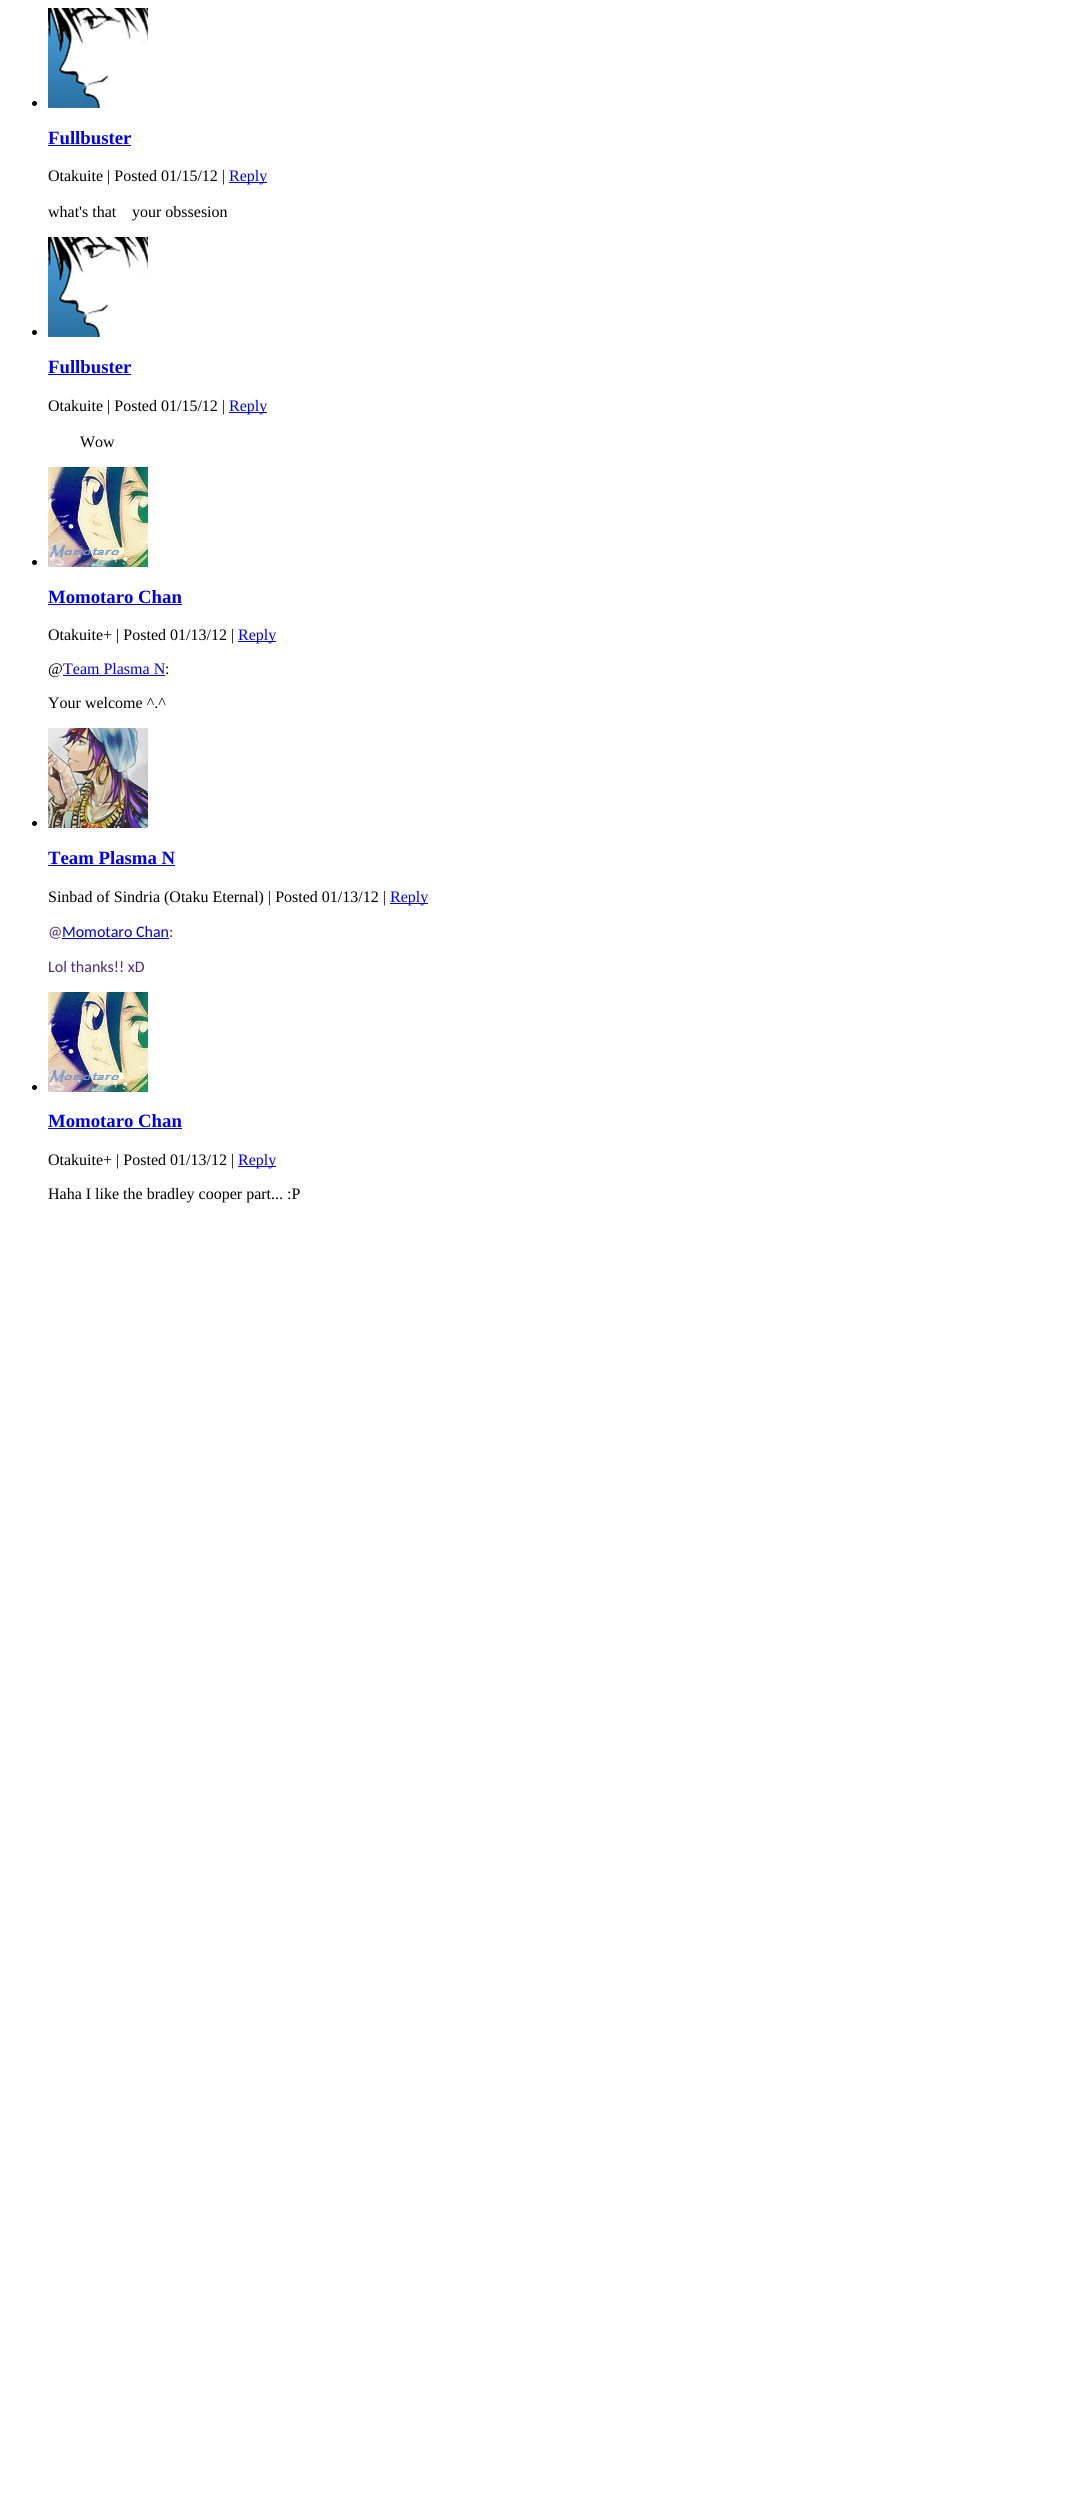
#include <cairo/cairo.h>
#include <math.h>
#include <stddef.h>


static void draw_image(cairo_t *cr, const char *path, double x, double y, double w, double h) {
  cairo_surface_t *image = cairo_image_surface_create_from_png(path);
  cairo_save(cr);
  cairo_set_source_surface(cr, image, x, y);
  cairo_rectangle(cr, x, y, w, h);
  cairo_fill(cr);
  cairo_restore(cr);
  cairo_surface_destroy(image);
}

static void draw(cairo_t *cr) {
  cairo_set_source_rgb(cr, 1, 1, 1);
  cairo_paint(cr);
  cairo_set_source_rgb(cr, 0, 0, 0);
  cairo_arc(cr, 34.5, 103.5, 2.5, 0, 2 * M_PI);
  cairo_fill(cr);
  draw_image(cr, "images/1.png", 48, 8, 100, 100);
  cairo_set_source_rgb(cr, 0, 0, 238 / 255.0);
  cairo_rectangle(cr, 48, 145, 83, 1);
  cairo_fill(cr);
  cairo_rectangle(cr, 229, 182, 38, 1);
  cairo_fill(cr);
  cairo_set_source_rgb(cr, 0, 0, 0);
  cairo_arc(cr, 34.5, 332.5, 2.5, 0, 2 * M_PI);
  cairo_fill(cr);
  draw_image(cr, "images/1.png", 48, 237, 100, 100);
  cairo_set_source_rgb(cr, 0, 0, 238 / 255.0);
  cairo_rectangle(cr, 48, 374, 83, 1);
  cairo_fill(cr);
  cairo_rectangle(cr, 229, 412, 38, 1);
  cairo_fill(cr);
  cairo_set_source_rgb(cr, 0, 0, 0);
  cairo_arc(cr, 34.5, 562.5, 2.5, 0, 2 * M_PI);
  cairo_fill(cr);
  draw_image(cr, "images/2.png", 48, 467, 100, 100);
  cairo_set_source_rgb(cr, 0, 0, 238 / 255.0);
  cairo_rectangle(cr, 48, 604, 134, 1);
  cairo_fill(cr);
  cairo_rectangle(cr, 238, 641, 38, 1);
  cairo_fill(cr);
  cairo_rectangle(cr, 63, 675, 102, 1);
  cairo_fill(cr);
  cairo_set_source_rgb(cr, 0, 0, 0);
  cairo_arc(cr, 34.5, 823.5, 2.5, 0, 2 * M_PI);
  cairo_fill(cr);
  draw_image(cr, "images/3.png", 48, 728, 100, 100);
  cairo_set_source_rgb(cr, 0, 0, 238 / 255.0);
  cairo_rectangle(cr, 48, 865, 127, 1);
  cairo_fill(cr);
  cairo_rectangle(cr, 390, 903, 38, 1);
  cairo_fill(cr);
  cairo_rectangle(cr, 62, 938, 107, 1);
  cairo_fill(cr);
  cairo_set_source_rgb(cr, 0, 0, 0);
  cairo_arc(cr, 34.5, 1087.5, 2.5, 0, 2 * M_PI);
  cairo_fill(cr);
  draw_image(cr, "images/2.png", 48, 992, 100, 100);
  cairo_set_source_rgb(cr, 0, 0, 238 / 255.0);
  cairo_rectangle(cr, 48, 1128, 134, 1);
  cairo_fill(cr);
  cairo_rectangle(cr, 238, 1166, 38, 1);
  cairo_fill(cr);
  cairo_select_font_face(cr, "Liberation Serif", CAIRO_FONT_SLANT_NORMAL, CAIRO_FONT_WEIGHT_BOLD);
  cairo_set_font_size(cr, 18.75);
  cairo_move_to(cr, 48, 144);
  cairo_show_text(cr, "Fullbuster");
  cairo_select_font_face(cr, "Liberation Serif", CAIRO_FONT_SLANT_NORMAL, CAIRO_FONT_WEIGHT_NORMAL);
  cairo_set_font_size(cr, 16);
  cairo_set_source_rgb(cr, 0, 0, 0);
  cairo_move_to(cr, 48, 181);
  cairo_show_text(cr, "Otakuite | Posted 01/15/12 |");
  cairo_set_source_rgb(cr, 0, 0, 238 / 255.0);
  cairo_move_to(cr, 229, 181);
  cairo_show_text(cr, "Reply");
  cairo_set_source_rgb(cr, 0, 0, 0);
  cairo_move_to(cr, 48, 217);
  cairo_show_text(cr, "what's that");
  cairo_move_to(cr, 132, 217);
  cairo_show_text(cr, "your obssesion");
  cairo_select_font_face(cr, "Liberation Serif", CAIRO_FONT_SLANT_NORMAL, CAIRO_FONT_WEIGHT_BOLD);
  cairo_set_font_size(cr, 18.75);
  cairo_set_source_rgb(cr, 0, 0, 238 / 255.0);
  cairo_move_to(cr, 48, 373);
  cairo_show_text(cr, "Fullbuster");
  cairo_select_font_face(cr, "Liberation Serif", CAIRO_FONT_SLANT_NORMAL, CAIRO_FONT_WEIGHT_NORMAL);
  cairo_set_font_size(cr, 16);
  cairo_set_source_rgb(cr, 0, 0, 0);
  cairo_move_to(cr, 48, 411);
  cairo_show_text(cr, "Otakuite | Posted 01/15/12 |");
  cairo_set_source_rgb(cr, 0, 0, 238 / 255.0);
  cairo_move_to(cr, 229, 411);
  cairo_show_text(cr, "Reply");
  cairo_set_source_rgb(cr, 0, 0, 0);
  cairo_move_to(cr, 80, 447);
  cairo_show_text(cr, "Wow");
  cairo_select_font_face(cr, "Liberation Serif", CAIRO_FONT_SLANT_NORMAL, CAIRO_FONT_WEIGHT_BOLD);
  cairo_set_font_size(cr, 18.75);
  cairo_set_source_rgb(cr, 0, 0, 238 / 255.0);
  cairo_move_to(cr, 48, 603);
  cairo_show_text(cr, "Momotaro Chan");
  cairo_select_font_face(cr, "Liberation Serif", CAIRO_FONT_SLANT_NORMAL, CAIRO_FONT_WEIGHT_NORMAL);
  cairo_set_font_size(cr, 16);
  cairo_set_source_rgb(cr, 0, 0, 0);
  cairo_move_to(cr, 48, 640);
  cairo_show_text(cr, "Otakuite+ | Posted 01/13/12 |");
  cairo_set_source_rgb(cr, 0, 0, 238 / 255.0);
  cairo_move_to(cr, 238, 640);
  cairo_show_text(cr, "Reply");
  cairo_set_source_rgb(cr, 0, 0, 0);
  cairo_move_to(cr, 48, 674);
  cairo_show_text(cr, "@");
  cairo_set_source_rgb(cr, 0, 0, 238 / 255.0);
  cairo_move_to(cr, 63, 674);
  cairo_show_text(cr, "Team Plasma N");
  cairo_set_source_rgb(cr, 0, 0, 0);
  cairo_move_to(cr, 165, 674);
  cairo_show_text(cr, ":");
  cairo_move_to(cr, 48, 708);
  cairo_show_text(cr, "Your welcome ^.^");
  cairo_select_font_face(cr, "Liberation Serif", CAIRO_FONT_SLANT_NORMAL, CAIRO_FONT_WEIGHT_BOLD);
  cairo_set_font_size(cr, 18.75);
  cairo_set_source_rgb(cr, 0, 0, 238 / 255.0);
  cairo_move_to(cr, 48, 864);
  cairo_show_text(cr, "Team Plasma N");
  cairo_select_font_face(cr, "Liberation Serif", CAIRO_FONT_SLANT_NORMAL, CAIRO_FONT_WEIGHT_NORMAL);
  cairo_set_font_size(cr, 16);
  cairo_set_source_rgb(cr, 0, 0, 0);
  cairo_move_to(cr, 48, 902);
  cairo_show_text(cr, "Sinbad of Sindria (Otaku Eternal) | Posted 01/13/12 |");
  cairo_set_source_rgb(cr, 0, 0, 238 / 255.0);
  cairo_move_to(cr, 390, 902);
  cairo_show_text(cr, "Reply");
  cairo_select_font_face(cr, "Carlito", CAIRO_FONT_SLANT_NORMAL, CAIRO_FONT_WEIGHT_NORMAL);
  cairo_set_source_rgb(cr, 79 / 255.0, 41 / 255.0, 142 / 255.0);
  cairo_move_to(cr, 48, 937);
  cairo_show_text(cr, "@");
  cairo_set_source_rgb(cr, 0, 0, 238 / 255.0);
  cairo_move_to(cr, 62, 937);
  cairo_show_text(cr, "Momotaro Chan");
  cairo_set_source_rgb(cr, 79 / 255.0, 41 / 255.0, 142 / 255.0);
  cairo_move_to(cr, 169, 937);
  cairo_show_text(cr, ":");
  cairo_move_to(cr, 48, 972);
  cairo_show_text(cr, "Lol thanks!! xD");
  cairo_select_font_face(cr, "Liberation Serif", CAIRO_FONT_SLANT_NORMAL, CAIRO_FONT_WEIGHT_BOLD);
  cairo_set_font_size(cr, 18.75);
  cairo_set_source_rgb(cr, 0, 0, 238 / 255.0);
  cairo_move_to(cr, 48, 1127);
  cairo_show_text(cr, "Momotaro Chan");
  cairo_select_font_face(cr, "Liberation Serif", CAIRO_FONT_SLANT_NORMAL, CAIRO_FONT_WEIGHT_NORMAL);
  cairo_set_font_size(cr, 16);
  cairo_set_source_rgb(cr, 0, 0, 0);
  cairo_move_to(cr, 48, 1165);
  cairo_show_text(cr, "Otakuite+ | Posted 01/13/12 |");
  cairo_set_source_rgb(cr, 0, 0, 238 / 255.0);
  cairo_move_to(cr, 238, 1165);
  cairo_show_text(cr, "Reply");
  cairo_set_source_rgb(cr, 0, 0, 0);
  cairo_move_to(cr, 48, 1199);
  cairo_show_text(cr, "Haha I like the bradley cooper part... :P");
}

int main(void) {
  cairo_surface_t *surface = cairo_image_surface_create(CAIRO_FORMAT_RGB24, 1084, 2516);
  cairo_t *cr = cairo_create(surface);
  cairo_font_options_t *options = cairo_font_options_create();
  cairo_font_options_set_hint_metrics(options, CAIRO_HINT_METRICS_OFF);
  cairo_font_options_set_hint_style(options, CAIRO_HINT_STYLE_NONE);
  cairo_set_font_options(cr, options);
  cairo_set_miter_limit(cr, 4);
  draw(cr);
  cairo_surface_write_to_png(surface, "out.png");
  cairo_font_options_destroy(options);
  cairo_destroy(cr);
  cairo_surface_destroy(surface);
  return 0;
}
